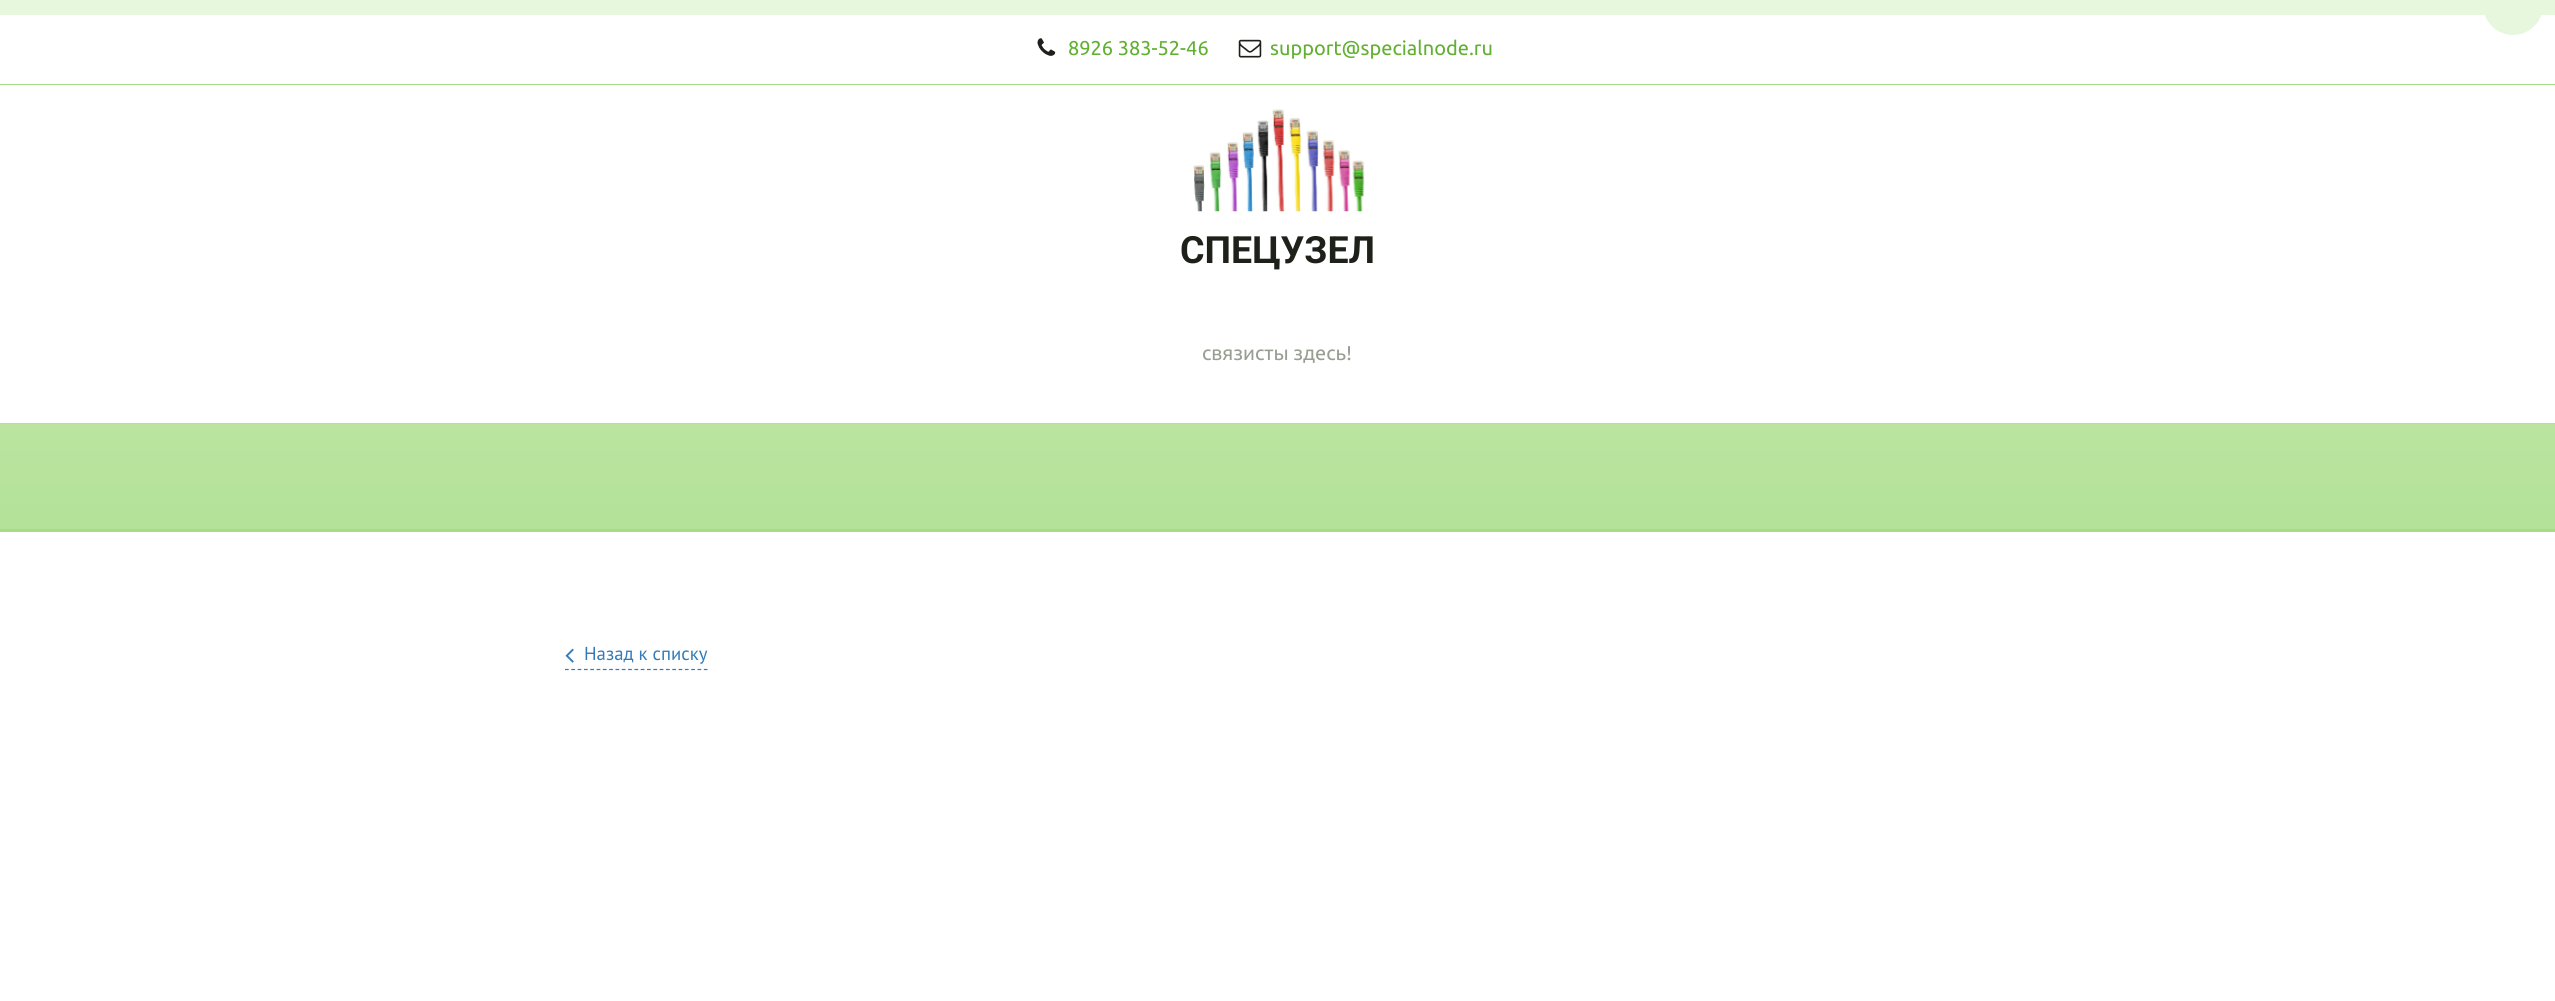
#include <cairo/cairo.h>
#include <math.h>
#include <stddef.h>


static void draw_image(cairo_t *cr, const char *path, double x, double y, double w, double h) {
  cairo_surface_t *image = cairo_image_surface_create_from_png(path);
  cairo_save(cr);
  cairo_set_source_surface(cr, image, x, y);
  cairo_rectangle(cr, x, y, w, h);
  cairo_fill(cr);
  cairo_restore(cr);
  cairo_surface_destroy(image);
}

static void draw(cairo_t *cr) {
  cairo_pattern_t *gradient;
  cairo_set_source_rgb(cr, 1, 1, 1);
  cairo_paint(cr);
  cairo_set_source_rgb(cr, 231 / 255.0, 247 / 255.0, 222 / 255.0);
  cairo_rectangle(cr, 0, 0, 2555, 15);
  cairo_fill(cr);
  cairo_new_path(cr);
  cairo_move_to(cr, 2483, -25);
  cairo_line_to(cr, 2543, -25);
  cairo_line_to(cr, 2543, 5);
  cairo_curve_to(cr, 2543, 21.5, 2529.5, 35, 2513, 35);
  cairo_curve_to(cr, 2496.5, 35, 2483, 21.5, 2483, 5);
  cairo_close_path(cr);
  cairo_fill(cr);
  cairo_set_source_rgb(cr, 166 / 255.0, 221 / 255.0, 132 / 255.0);
  cairo_rectangle(cr, 0, 84, 2555, 1);
  cairo_fill(cr);
  draw_image(cr, "images/1.png", 1037, 38, 19, 18);
  draw_image(cr, "images/2.png", 1238, 39, 24, 19);
  draw_image(cr, "images/3.png", 1193, 109, 172, 103);
  gradient = cairo_pattern_create_linear(1278, 316, 1278, 424);
  cairo_pattern_add_color_stop_rgba(gradient, 0, 186 / 255.0, 228 / 255.0, 160 / 255.0, 1);
  cairo_pattern_add_color_stop_rgba(gradient, 1, 180 / 255.0, 226 / 255.0, 152 / 255.0, 1);
  cairo_set_source(cr, gradient);
  cairo_pattern_destroy(gradient);
  cairo_rectangle(cr, 0, 423, 2555, 1);
  cairo_fill(cr);
  gradient = cairo_pattern_create_linear(1278, 424, 1278, 531);
  cairo_pattern_add_color_stop_rgba(gradient, 0, 186 / 255.0, 228 / 255.0, 160 / 255.0, 1);
  cairo_pattern_add_color_stop_rgba(gradient, 1, 180 / 255.0, 226 / 255.0, 152 / 255.0, 1);
  cairo_set_source(cr, gradient);
  cairo_pattern_destroy(gradient);
  cairo_rectangle(cr, 0, 424, 2555, 105);
  cairo_fill(cr);
  cairo_set_source_rgb(cr, 166 / 255.0, 221 / 255.0, 132 / 255.0);
  cairo_rectangle(cr, 0, 529, 2555, 3);
  cairo_fill(cr);
  cairo_new_path(cr);
  cairo_move_to(cr, 565, 669.5);
  cairo_line_to(cr, 707.5, 669.5);
  cairo_set_source_rgb(cr, 51 / 255.0, 122 / 255.0, 183 / 255.0);
  cairo_set_line_width(cr, 1.2);
  cairo_set_dash(cr, (double[]){3.75, 2.56}, 2, 0);
  cairo_stroke(cr);
  draw_image(cr, "images/4.png", 565, 648, 9, 15);
  cairo_select_font_face(cr, "Ubuntu", CAIRO_FONT_SLANT_NORMAL, CAIRO_FONT_WEIGHT_NORMAL);
  cairo_set_font_size(cr, 20);
  cairo_set_source_rgb(cr, 98 / 255.0, 176 / 255.0, 49 / 255.0);
  cairo_move_to(cr, 1068, 55);
  cairo_show_text(cr, "8926 383-52-46");
  cairo_move_to(cr, 1270, 55);
  cairo_show_text(cr, "support@specialnode.ru");
  cairo_select_font_face(cr, "Roboto", CAIRO_FONT_SLANT_NORMAL, CAIRO_FONT_WEIGHT_BOLD);
  cairo_set_font_size(cr, 37.5);
  cairo_set_source_rgb(cr, 29 / 255.0, 33 / 255.0, 26 / 255.0);
  cairo_move_to(cr, 1180, 263);
  cairo_show_text(cr, "СПЕЦУЗЕЛ");
  cairo_select_font_face(cr, "Ubuntu", CAIRO_FONT_SLANT_NORMAL, CAIRO_FONT_WEIGHT_NORMAL);
  cairo_set_font_size(cr, 20);
  cairo_set_source_rgb(cr, 151 / 255.0, 158 / 255.0, 146 / 255.0);
  cairo_move_to(cr, 1202, 360);
  cairo_show_text(cr, "связисты здесь!");
  cairo_select_font_face(cr, "PT Sans", CAIRO_FONT_SLANT_NORMAL, CAIRO_FONT_WEIGHT_NORMAL);
  cairo_set_font_size(cr, 18.75);
  cairo_set_source_rgb(cr, 51 / 255.0, 122 / 255.0, 183 / 255.0);
  cairo_move_to(cr, 584, 660);
  cairo_show_text(cr, "Назад к списку");
}

int main(void) {
  cairo_surface_t *surface = cairo_image_surface_create(CAIRO_FORMAT_RGB24, 2555, 1001);
  cairo_t *cr = cairo_create(surface);
  cairo_font_options_t *options = cairo_font_options_create();
  cairo_font_options_set_hint_metrics(options, CAIRO_HINT_METRICS_OFF);
  cairo_font_options_set_hint_style(options, CAIRO_HINT_STYLE_NONE);
  cairo_set_font_options(cr, options);
  cairo_set_miter_limit(cr, 4);
  draw(cr);
  cairo_surface_write_to_png(surface, "out.png");
  cairo_font_options_destroy(options);
  cairo_destroy(cr);
  cairo_surface_destroy(surface);
  return 0;
}
